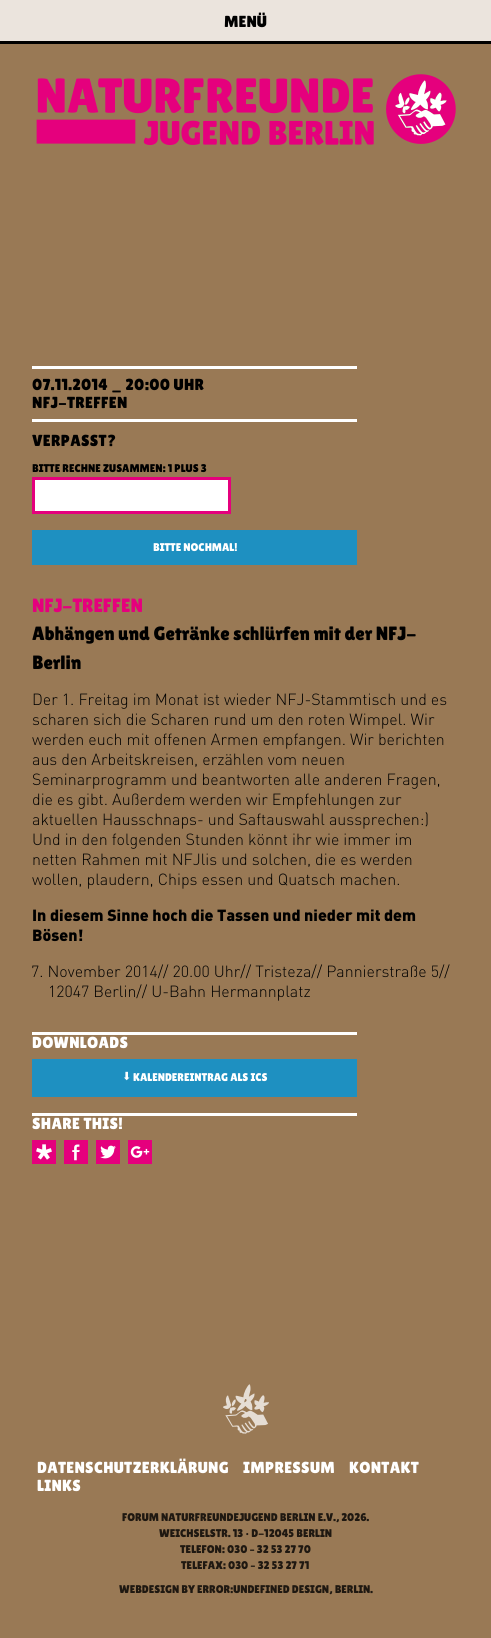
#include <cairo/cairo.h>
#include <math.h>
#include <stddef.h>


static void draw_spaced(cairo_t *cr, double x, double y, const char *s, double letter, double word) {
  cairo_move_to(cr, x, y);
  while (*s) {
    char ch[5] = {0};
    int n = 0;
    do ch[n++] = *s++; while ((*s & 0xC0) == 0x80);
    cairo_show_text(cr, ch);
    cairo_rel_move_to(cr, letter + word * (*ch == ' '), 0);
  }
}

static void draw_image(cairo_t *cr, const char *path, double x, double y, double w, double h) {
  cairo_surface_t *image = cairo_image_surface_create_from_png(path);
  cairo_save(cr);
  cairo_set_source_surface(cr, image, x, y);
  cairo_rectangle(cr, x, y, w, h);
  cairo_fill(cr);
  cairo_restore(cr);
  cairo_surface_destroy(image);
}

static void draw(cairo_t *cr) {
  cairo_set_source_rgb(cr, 153 / 255.0, 121 / 255.0, 85 / 255.0);
  cairo_paint(cr);
  cairo_set_source_rgb(cr, 235 / 255.0, 228 / 255.0, 221 / 255.0);
  cairo_rectangle(cr, 0, 0, 491, 41);
  cairo_fill(cr);
  cairo_set_source_rgb(cr, 0, 0, 0);
  cairo_rectangle(cr, 0, 41, 491, 3);
  cairo_fill(cr);
  draw_image(cr, "images/1.png", 36, 74, 420, 71);
  cairo_set_source_rgb(cr, 1, 1, 1);
  cairo_rectangle(cr, 32, 366, 325, 3);
  cairo_fill(cr);
  cairo_rectangle(cr, 32, 419, 325, 3);
  cairo_fill(cr);
  cairo_rectangle(cr, 33.5, 478.5, 196, 34);
  cairo_fill_preserve(cr);
  cairo_set_source_rgb(cr, 229 / 255.0, 0, 125 / 255.0);
  cairo_set_line_width(cr, 3);
  cairo_stroke(cr);
  cairo_set_source_rgb(cr, 30 / 255.0, 144 / 255.0, 193 / 255.0);
  cairo_rectangle(cr, 32, 530, 325, 35);
  cairo_fill(cr);
  cairo_set_source_rgb(cr, 1, 1, 1);
  cairo_rectangle(cr, 32, 1032, 325, 3);
  cairo_fill(cr);
  cairo_set_source_rgb(cr, 30 / 255.0, 144 / 255.0, 193 / 255.0);
  cairo_rectangle(cr, 32, 1059, 325, 38);
  cairo_fill(cr);
  cairo_set_source_rgb(cr, 1, 1, 1);
  cairo_rectangle(cr, 32, 1113, 325, 3);
  cairo_fill(cr);
  draw_image(cr, "images/2.png", 32, 1140, 24, 24);
  draw_image(cr, "images/3.png", 64, 1140, 24, 24);
  draw_image(cr, "images/4.png", 96, 1140, 24, 24);
  draw_image(cr, "images/5.png", 128, 1140, 24, 24);
  draw_image(cr, "images/6.png", 223, 1384, 46, 50);
  cairo_select_font_face(cr, "Lilita One", CAIRO_FONT_SLANT_NORMAL, CAIRO_FONT_WEIGHT_NORMAL);
  cairo_set_font_size(cr, 16);
  cairo_set_source_rgb(cr, 0, 0, 0);
  cairo_move_to(cr, 224, 27);
  cairo_show_text(cr, "MENÜ");
  draw_spaced(cr, 32, 390, "07.11.2014 _ 20:00 UHR", 0.3, 0);
  draw_spaced(cr, 32, 408, "NFJ-TREFFEN", 0.3, 0);
  draw_spaced(cr, 32, 446, "VERPASST?", 0.3, 0);
  cairo_set_font_size(cr, 11.2);
  cairo_move_to(cr, 32, 472);
  cairo_show_text(cr, "BITTE RECHNE ZUSAMMEN: 1 PLUS 3");
  cairo_set_source_rgb(cr, 1, 1, 1);
  cairo_move_to(cr, 153, 551);
  cairo_show_text(cr, "BITTE NOCHMAL!");
  cairo_set_font_size(cr, 19.2);
  cairo_set_source_rgb(cr, 229 / 255.0, 0, 125 / 255.0);
  cairo_move_to(cr, 32, 612);
  cairo_show_text(cr, "NFJ-TREFFEN");
  cairo_set_source_rgb(cr, 0, 0, 0);
  cairo_move_to(cr, 32, 640);
  cairo_show_text(cr, "Abhängen und Getränke schlürfen mit der NFJ-");
  cairo_move_to(cr, 32, 669);
  cairo_show_text(cr, "Berlin");
  cairo_select_font_face(cr, "DIN Light", CAIRO_FONT_SLANT_NORMAL, CAIRO_FONT_WEIGHT_NORMAL);
  cairo_set_font_size(cr, 16);
  cairo_move_to(cr, 32, 705);
  cairo_show_text(cr, "Der 1. Freitag im Monat ist wieder NFJ-Stammtisch und es");
  cairo_move_to(cr, 32, 725);
  cairo_show_text(cr, "scharen sich die Scharen rund um den roten Wimpel. Wir");
  cairo_move_to(cr, 32, 745);
  cairo_show_text(cr, "werden euch mit offenen Armen empfangen. Wir berichten");
  cairo_move_to(cr, 32, 765);
  cairo_show_text(cr, "aus den Arbeitskreisen, erzählen vom neuen");
  cairo_move_to(cr, 32, 785);
  cairo_show_text(cr, "Seminarprogramm und beantworten alle anderen Fragen,");
  cairo_move_to(cr, 32, 805);
  cairo_show_text(cr, "die es gibt. Außerdem werden wir Empfehlungen zur");
  cairo_move_to(cr, 32, 825);
  cairo_show_text(cr, "aktuellen Hausschnaps- und Saftauswahl aussprechen:)");
  cairo_move_to(cr, 32, 845);
  cairo_show_text(cr, "Und in den folgenden Stunden könnt ihr wie immer im");
  cairo_move_to(cr, 32, 865);
  cairo_show_text(cr, "netten Rahmen mit NFJlis und solchen, die es werden");
  cairo_move_to(cr, 32, 885);
  cairo_show_text(cr, "wollen, plaudern, Chips essen und Quatsch machen.");
  cairo_select_font_face(cr, "DIN Black", CAIRO_FONT_SLANT_NORMAL, CAIRO_FONT_WEIGHT_NORMAL);
  cairo_move_to(cr, 32, 921);
  cairo_show_text(cr, "In diesem Sinne hoch die Tassen und nieder mit dem");
  cairo_move_to(cr, 32, 941);
  cairo_show_text(cr, "Bösen!");
  cairo_select_font_face(cr, "DIN Light", CAIRO_FONT_SLANT_NORMAL, CAIRO_FONT_WEIGHT_NORMAL);
  cairo_move_to(cr, 31, 977);
  cairo_show_text(cr, "7. November 2014// 20.00 Uhr// Tristeza// Pannierstraße 5//");
  cairo_move_to(cr, 48, 997);
  cairo_show_text(cr, "12047 Berlin// U-Bahn Hermannplatz");
  cairo_select_font_face(cr, "Lilita One", CAIRO_FONT_SLANT_NORMAL, CAIRO_FONT_WEIGHT_NORMAL);
  cairo_set_source_rgb(cr, 1, 1, 1);
  draw_spaced(cr, 32, 1048, "DOWNLOADS", 0.3, 0);
  cairo_select_font_face(cr, "DejaVu Sans", CAIRO_FONT_SLANT_NORMAL, CAIRO_FONT_WEIGHT_NORMAL);
  cairo_set_font_size(cr, 11.2);
  cairo_move_to(cr, 122, 1080);
  cairo_show_text(cr, "⬇");
  cairo_select_font_face(cr, "Lilita One", CAIRO_FONT_SLANT_NORMAL, CAIRO_FONT_WEIGHT_NORMAL);
  cairo_move_to(cr, 133, 1081);
  cairo_show_text(cr, "KALENDEREINTRAG ALS ICS");
  cairo_set_font_size(cr, 16);
  draw_spaced(cr, 32, 1129, "SHARE THIS!", 0.3, 0);
  draw_spaced(cr, 37, 1473, "DATENSCHUTZERKLÄRUNG", 0.3, 0);
  draw_spaced(cr, 243, 1473, "IMPRESSUM", 0.3, 0);
  draw_spaced(cr, 349, 1473, "KONTAKT", 0.3, 0);
  draw_spaced(cr, 37, 1491, "LINKS", 0.3, 0);
  cairo_set_font_size(cr, 11.2);
  cairo_set_source_rgb(cr, 31 / 255.0, 24 / 255.0, 17 / 255.0);
  cairo_move_to(cr, 122, 1521);
  cairo_show_text(cr, "FORUM NATURFREUNDEJUGEND BERLIN E.V., 2026.");
  cairo_move_to(cr, 159, 1537);
  cairo_show_text(cr, "WEICHSELSTR. 13 • D-12045 BERLIN");
  cairo_move_to(cr, 180, 1553);
  cairo_show_text(cr, "TELEFON: 030 – 32 53 27 70");
  cairo_move_to(cr, 181, 1569);
  cairo_show_text(cr, "TELEFAX: 030 – 32 53 27 71");
  cairo_move_to(cr, 119, 1593);
  cairo_show_text(cr, "WEBDESIGN BY ERROR:UNDEFINED DESIGN, BERLIN.");
}

int main(void) {
  cairo_surface_t *surface = cairo_image_surface_create(CAIRO_FORMAT_RGB24, 491, 1638);
  cairo_t *cr = cairo_create(surface);
  cairo_font_options_t *options = cairo_font_options_create();
  cairo_font_options_set_hint_metrics(options, CAIRO_HINT_METRICS_OFF);
  cairo_font_options_set_hint_style(options, CAIRO_HINT_STYLE_NONE);
  cairo_set_font_options(cr, options);
  cairo_set_miter_limit(cr, 4);
  draw(cr);
  cairo_surface_write_to_png(surface, "out.png");
  cairo_font_options_destroy(options);
  cairo_destroy(cr);
  cairo_surface_destroy(surface);
  return 0;
}
